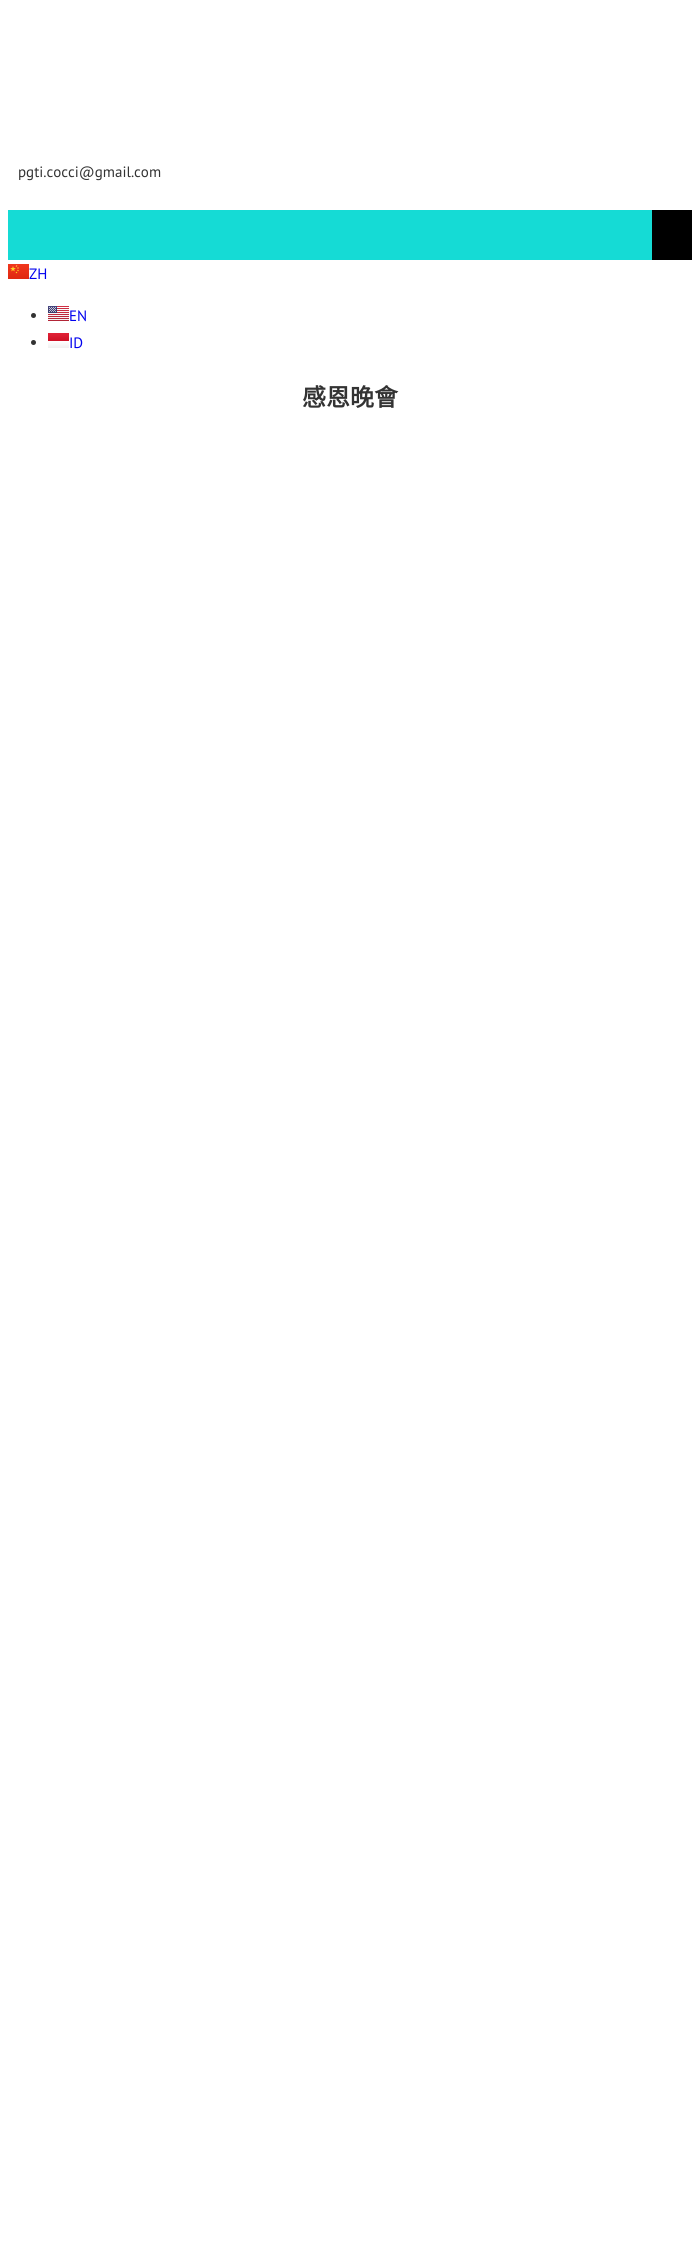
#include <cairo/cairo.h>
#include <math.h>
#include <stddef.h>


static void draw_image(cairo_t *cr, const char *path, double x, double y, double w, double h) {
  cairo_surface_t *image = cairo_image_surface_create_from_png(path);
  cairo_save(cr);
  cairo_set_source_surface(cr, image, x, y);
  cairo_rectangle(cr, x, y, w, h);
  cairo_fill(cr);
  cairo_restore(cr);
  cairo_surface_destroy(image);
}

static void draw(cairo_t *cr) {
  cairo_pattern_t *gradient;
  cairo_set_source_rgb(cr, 1, 1, 1);
  cairo_paint(cr);
  cairo_set_source_rgb(cr, 21 / 255.0, 219 / 255.0, 213 / 255.0);
  cairo_rectangle(cr, 8, 210, 644, 50);
  cairo_fill(cr);
  cairo_set_source_rgb(cr, 0, 0, 0);
  cairo_rectangle(cr, 652, 210, 40, 50);
  cairo_fill(cr);
  draw_image(cr, "images/1.png", 8, 264, 21, 15);
  cairo_set_source_rgb(cr, 51 / 255.0, 51 / 255.0, 51 / 255.0);
  cairo_arc(cr, 33.5, 315.5, 2.5, 0, 2 * M_PI);
  cairo_fill(cr);
  draw_image(cr, "images/2.png", 48, 306, 21, 15);
  cairo_arc(cr, 33.5, 342.5, 2.5, 0, 2 * M_PI);
  cairo_fill(cr);
  gradient = cairo_pattern_create_linear(59, 333, 59, 341);
  cairo_pattern_add_color_stop_rgba(gradient, 0, 225 / 255.0, 34 / 255.0, 55 / 255.0, 1);
  cairo_pattern_add_color_stop_rgba(gradient, 1, 206 / 255.0, 17 / 255.0, 38 / 255.0, 1);
  cairo_set_source(cr, gradient);
  cairo_pattern_destroy(gradient);
  cairo_rectangle(cr, 48, 333, 21, 8);
  cairo_fill(cr);
  gradient = cairo_pattern_create_linear(59, 341, 59, 348);
  cairo_pattern_add_color_stop_rgba(gradient, 0, 1, 1, 1, 1);
  cairo_pattern_add_color_stop_rgba(gradient, 1, 240 / 255.0, 240 / 255.0, 240 / 255.0, 1);
  cairo_set_source(cr, gradient);
  cairo_pattern_destroy(gradient);
  cairo_rectangle(cr, 48, 342, 21, 6);
  cairo_fill(cr);
  cairo_select_font_face(cr, "PT Sans", CAIRO_FONT_SLANT_NORMAL, CAIRO_FONT_WEIGHT_NORMAL);
  cairo_set_font_size(cr, 15);
  cairo_set_source_rgb(cr, 51 / 255.0, 51 / 255.0, 51 / 255.0);
  cairo_move_to(cr, 18, 177);
  cairo_show_text(cr, "pgti.cocci@gmail.com");
  cairo_set_source_rgb(cr, 0, 0, 238 / 255.0);
  cairo_move_to(cr, 29, 279);
  cairo_show_text(cr, "ZH");
  cairo_move_to(cr, 69, 321);
  cairo_show_text(cr, "EN");
  cairo_move_to(cr, 69, 348);
  cairo_show_text(cr, "ID");
  cairo_select_font_face(cr, "Noto Sans CJK SC", CAIRO_FONT_SLANT_NORMAL, CAIRO_FONT_WEIGHT_BOLD);
  cairo_set_font_size(cr, 24);
  cairo_set_source_rgb(cr, 51 / 255.0, 51 / 255.0, 51 / 255.0);
  cairo_move_to(cr, 302, 406);
  cairo_show_text(cr, "感恩晚會");
}

int main(void) {
  cairo_surface_t *surface = cairo_image_surface_create(CAIRO_FORMAT_RGB24, 700, 2267);
  cairo_t *cr = cairo_create(surface);
  cairo_font_options_t *options = cairo_font_options_create();
  cairo_font_options_set_hint_metrics(options, CAIRO_HINT_METRICS_OFF);
  cairo_font_options_set_hint_style(options, CAIRO_HINT_STYLE_NONE);
  cairo_set_font_options(cr, options);
  cairo_set_miter_limit(cr, 4);
  draw(cr);
  cairo_surface_write_to_png(surface, "out.png");
  cairo_font_options_destroy(options);
  cairo_destroy(cr);
  cairo_surface_destroy(surface);
  return 0;
}
